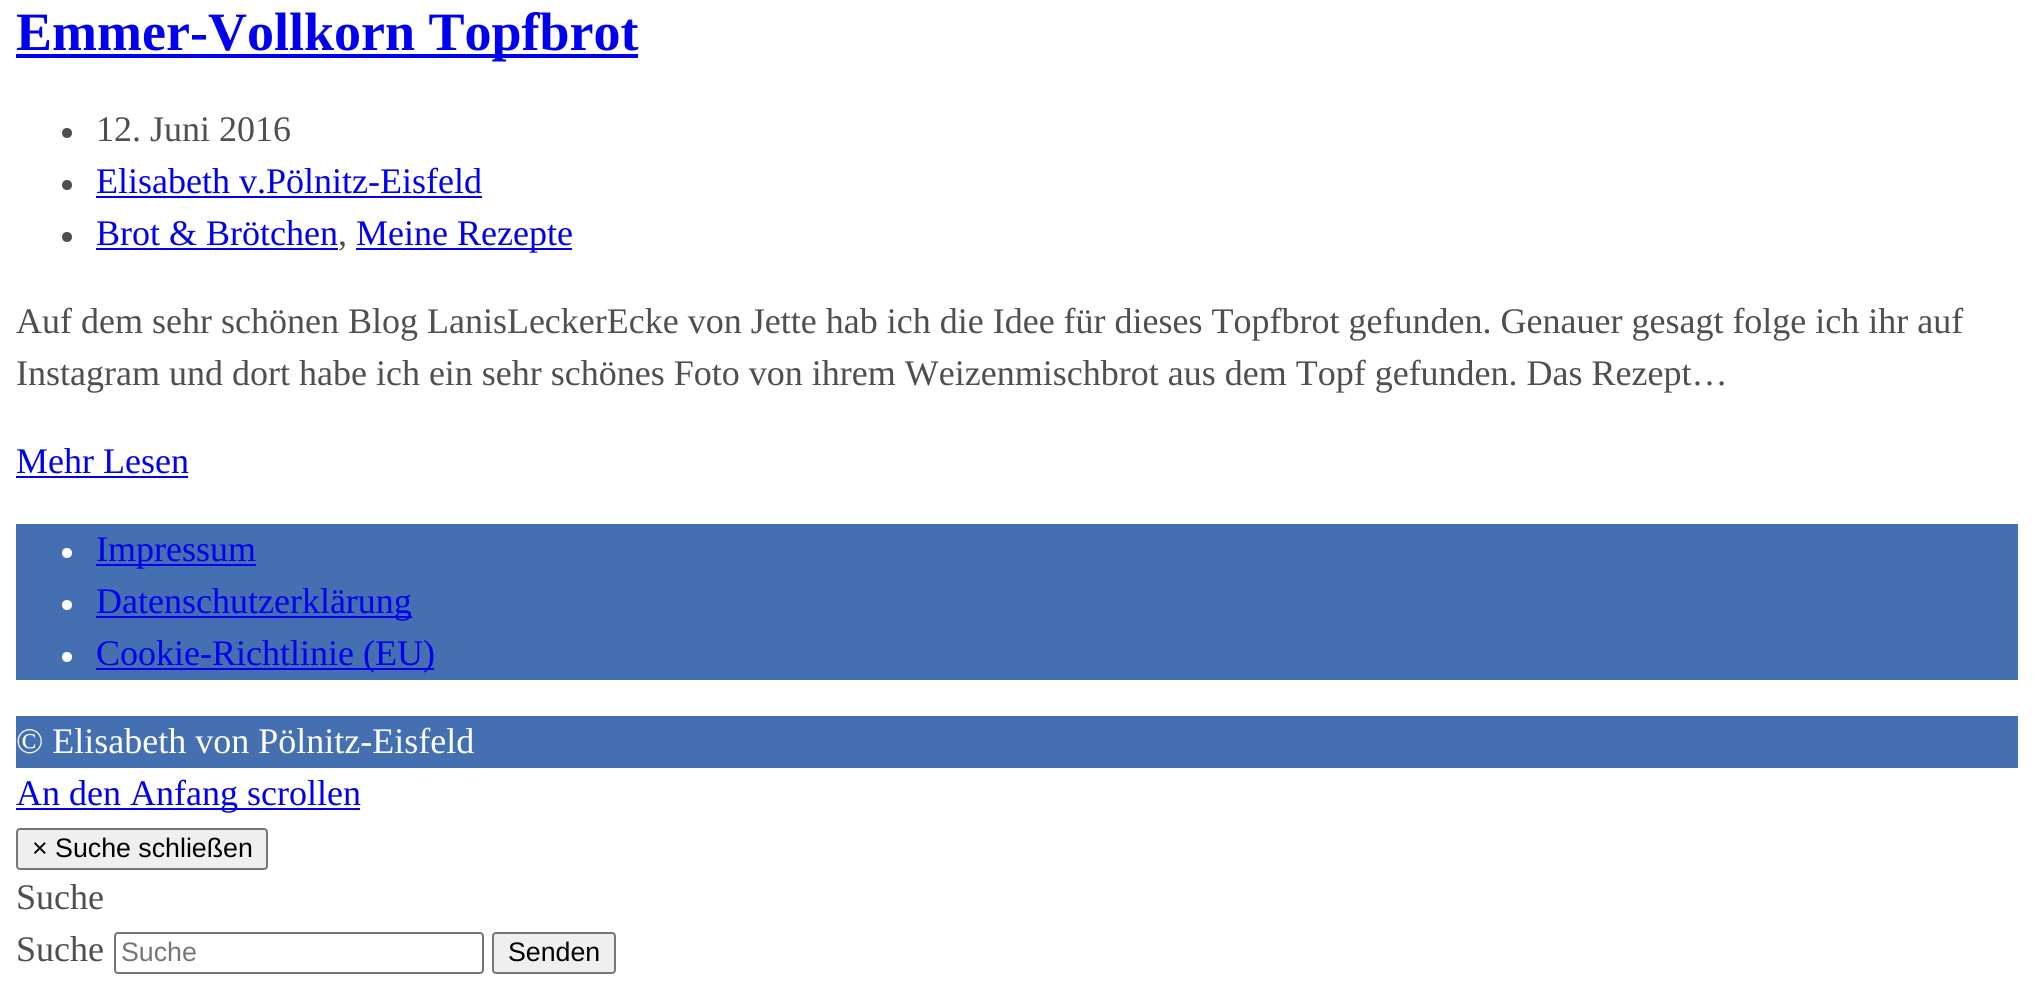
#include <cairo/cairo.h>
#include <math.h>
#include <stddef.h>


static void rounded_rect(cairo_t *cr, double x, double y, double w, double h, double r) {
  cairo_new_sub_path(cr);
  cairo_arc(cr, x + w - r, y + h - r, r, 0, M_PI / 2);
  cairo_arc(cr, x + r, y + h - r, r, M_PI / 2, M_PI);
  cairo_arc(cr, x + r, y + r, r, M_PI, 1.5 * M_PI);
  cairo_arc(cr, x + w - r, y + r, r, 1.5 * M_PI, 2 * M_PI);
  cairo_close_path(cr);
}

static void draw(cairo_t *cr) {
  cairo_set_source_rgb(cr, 1, 1, 1);
  cairo_paint(cr);
  cairo_set_source_rgb(cr, 0, 0, 238 / 255.0);
  cairo_rectangle(cr, 16, 54, 622, 4);
  cairo_fill(cr);
  cairo_set_source_rgb(cr, 79 / 255.0, 79 / 255.0, 79 / 255.0);
  cairo_arc(cr, 67, 133, 5, 0, 2 * M_PI);
  cairo_fill(cr);
  cairo_arc(cr, 67, 185, 5, 0, 2 * M_PI);
  cairo_fill(cr);
  cairo_set_source_rgb(cr, 0, 0, 238 / 255.0);
  cairo_rectangle(cr, 96, 196, 386, 2);
  cairo_fill(cr);
  cairo_set_source_rgb(cr, 79 / 255.0, 79 / 255.0, 79 / 255.0);
  cairo_arc(cr, 67, 237, 5, 0, 2 * M_PI);
  cairo_fill(cr);
  cairo_set_source_rgb(cr, 0, 0, 238 / 255.0);
  cairo_rectangle(cr, 96, 248, 242, 2);
  cairo_fill(cr);
  cairo_rectangle(cr, 356, 248, 216, 2);
  cairo_fill(cr);
  cairo_rectangle(cr, 16, 476, 172, 2);
  cairo_fill(cr);
  cairo_set_source_rgb(cr, 68 / 255.0, 112 / 255.0, 178 / 255.0);
  cairo_rectangle(cr, 16, 524, 2002, 156);
  cairo_fill(cr);
  cairo_set_source_rgb(cr, 1, 1, 1);
  cairo_arc(cr, 67, 553, 5, 0, 2 * M_PI);
  cairo_fill(cr);
  cairo_set_source_rgb(cr, 0, 0, 238 / 255.0);
  cairo_rectangle(cr, 96, 564, 160, 2);
  cairo_fill(cr);
  cairo_set_source_rgb(cr, 1, 1, 1);
  cairo_arc(cr, 67, 605, 5, 0, 2 * M_PI);
  cairo_fill(cr);
  cairo_set_source_rgb(cr, 0, 0, 238 / 255.0);
  cairo_rectangle(cr, 96, 616, 316, 2);
  cairo_fill(cr);
  cairo_set_source_rgb(cr, 1, 1, 1);
  cairo_arc(cr, 67, 657, 5, 0, 2 * M_PI);
  cairo_fill(cr);
  cairo_set_source_rgb(cr, 0, 0, 238 / 255.0);
  cairo_rectangle(cr, 96, 668, 338, 2);
  cairo_fill(cr);
  cairo_set_source_rgb(cr, 68 / 255.0, 112 / 255.0, 178 / 255.0);
  cairo_rectangle(cr, 16, 716, 2002, 52);
  cairo_fill(cr);
  cairo_set_source_rgb(cr, 0, 0, 238 / 255.0);
  cairo_rectangle(cr, 16, 808, 344, 2);
  cairo_fill(cr);
  cairo_set_source_rgb(cr, 239 / 255.0, 239 / 255.0, 239 / 255.0);
  rounded_rect(cr, 17, 829, 250, 40, 3);
  cairo_fill_preserve(cr);
  cairo_set_source_rgb(cr, 118 / 255.0, 118 / 255.0, 118 / 255.0);
  cairo_stroke(cr);
  rounded_rect(cr, 115, 933, 368, 40, 3);
  cairo_stroke(cr);
  cairo_set_source_rgb(cr, 239 / 255.0, 239 / 255.0, 239 / 255.0);
  rounded_rect(cr, 493, 933, 122, 40, 3);
  cairo_fill_preserve(cr);
  cairo_set_source_rgb(cr, 118 / 255.0, 118 / 255.0, 118 / 255.0);
  cairo_stroke(cr);
  cairo_select_font_face(cr, "Liberation Serif", CAIRO_FONT_SLANT_NORMAL, CAIRO_FONT_WEIGHT_BOLD);
  cairo_set_font_size(cr, 54);
  cairo_set_source_rgb(cr, 0, 0, 238 / 255.0);
  cairo_move_to(cr, 16, 50);
  cairo_show_text(cr, "Emmer-Vollkorn Topfbrot");
  cairo_select_font_face(cr, "Liberation Serif", CAIRO_FONT_SLANT_NORMAL, CAIRO_FONT_WEIGHT_NORMAL);
  cairo_set_font_size(cr, 36);
  cairo_set_source_rgb(cr, 79 / 255.0, 79 / 255.0, 79 / 255.0);
  cairo_move_to(cr, 96, 141);
  cairo_show_text(cr, "12. Juni 2016");
  cairo_set_source_rgb(cr, 0, 0, 238 / 255.0);
  cairo_move_to(cr, 96, 193);
  cairo_show_text(cr, "Elisabeth v.Pölnitz-Eisfeld");
  cairo_move_to(cr, 96, 245);
  cairo_show_text(cr, "Brot & Brötchen");
  cairo_move_to(cr, 356, 245);
  cairo_show_text(cr, "Meine Rezepte");
  cairo_set_source_rgb(cr, 79 / 255.0, 79 / 255.0, 79 / 255.0);
  cairo_move_to(cr, 338, 245);
  cairo_show_text(cr, ",");
  cairo_move_to(cr, 16, 333);
  cairo_show_text(cr, "Auf dem sehr schönen Blog LanisLeckerEcke von Jette hab ich die Idee für dieses Topfbrot gefunden. Genauer gesagt folge ich ihr auf");
  cairo_move_to(cr, 16, 385);
  cairo_show_text(cr, "Instagram und dort habe ich ein sehr schönes Foto von ihrem Weizenmischbrot aus dem Topf gefunden. Das Rezept…");
  cairo_set_source_rgb(cr, 0, 0, 238 / 255.0);
  cairo_move_to(cr, 16, 473);
  cairo_show_text(cr, "Mehr Lesen");
  cairo_move_to(cr, 96, 561);
  cairo_show_text(cr, "Impressum");
  cairo_move_to(cr, 96, 613);
  cairo_show_text(cr, "Datenschutzerklärung");
  cairo_move_to(cr, 96, 665);
  cairo_show_text(cr, "Cookie-Richtlinie (EU)");
  cairo_set_source_rgb(cr, 1, 1, 1);
  cairo_move_to(cr, 16, 753);
  cairo_show_text(cr, "© Elisabeth von Pölnitz-Eisfeld");
  cairo_set_source_rgb(cr, 0, 0, 238 / 255.0);
  cairo_move_to(cr, 16, 805);
  cairo_show_text(cr, "An den Anfang scrollen");
  cairo_select_font_face(cr, "Liberation Sans", CAIRO_FONT_SLANT_NORMAL, CAIRO_FONT_WEIGHT_NORMAL);
  cairo_set_font_size(cr, 26.75);
  cairo_set_source_rgb(cr, 0, 0, 0);
  cairo_move_to(cr, 32, 857);
  cairo_show_text(cr, "× Suche schließen");
  cairo_select_font_face(cr, "Liberation Serif", CAIRO_FONT_SLANT_NORMAL, CAIRO_FONT_WEIGHT_NORMAL);
  cairo_set_font_size(cr, 36);
  cairo_set_source_rgb(cr, 79 / 255.0, 79 / 255.0, 79 / 255.0);
  cairo_move_to(cr, 16, 909);
  cairo_show_text(cr, "Suche");
  cairo_move_to(cr, 16, 961);
  cairo_show_text(cr, "Suche");
  cairo_select_font_face(cr, "Liberation Sans", CAIRO_FONT_SLANT_NORMAL, CAIRO_FONT_WEIGHT_NORMAL);
  cairo_set_font_size(cr, 26.75);
  cairo_set_source_rgb(cr, 117 / 255.0, 117 / 255.0, 117 / 255.0);
  cairo_move_to(cr, 121, 961);
  cairo_show_text(cr, "Suche");
  cairo_set_source_rgb(cr, 0, 0, 0);
  cairo_move_to(cr, 508, 961);
  cairo_show_text(cr, "Senden");
}

int main(void) {
  cairo_surface_t *surface = cairo_image_surface_create(CAIRO_FORMAT_RGB24, 2033, 992);
  cairo_t *cr = cairo_create(surface);
  cairo_font_options_t *options = cairo_font_options_create();
  cairo_font_options_set_hint_metrics(options, CAIRO_HINT_METRICS_OFF);
  cairo_font_options_set_hint_style(options, CAIRO_HINT_STYLE_NONE);
  cairo_set_font_options(cr, options);
  cairo_set_miter_limit(cr, 4);
  draw(cr);
  cairo_surface_write_to_png(surface, "out.png");
  cairo_font_options_destroy(options);
  cairo_destroy(cr);
  cairo_surface_destroy(surface);
  return 0;
}
